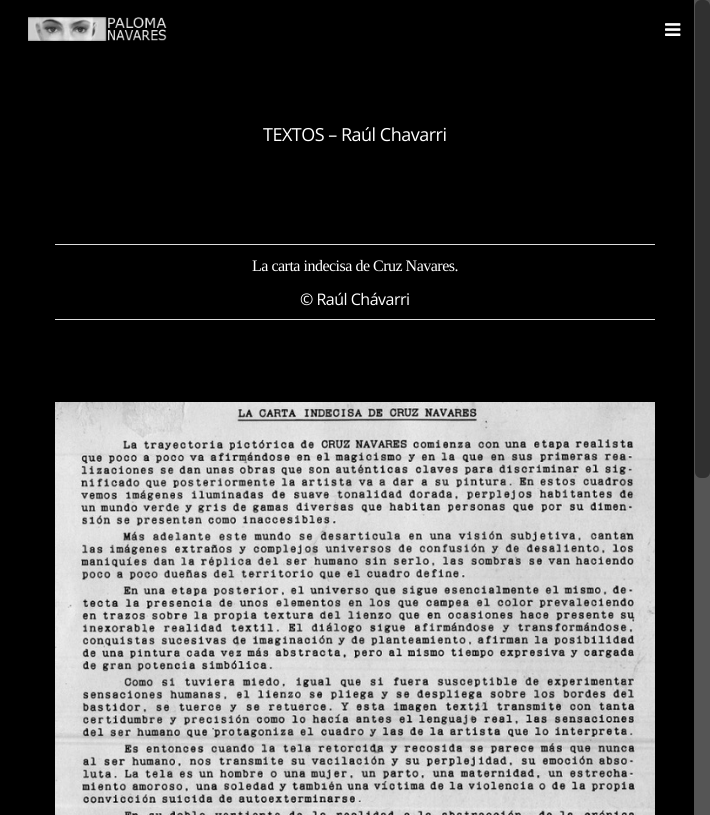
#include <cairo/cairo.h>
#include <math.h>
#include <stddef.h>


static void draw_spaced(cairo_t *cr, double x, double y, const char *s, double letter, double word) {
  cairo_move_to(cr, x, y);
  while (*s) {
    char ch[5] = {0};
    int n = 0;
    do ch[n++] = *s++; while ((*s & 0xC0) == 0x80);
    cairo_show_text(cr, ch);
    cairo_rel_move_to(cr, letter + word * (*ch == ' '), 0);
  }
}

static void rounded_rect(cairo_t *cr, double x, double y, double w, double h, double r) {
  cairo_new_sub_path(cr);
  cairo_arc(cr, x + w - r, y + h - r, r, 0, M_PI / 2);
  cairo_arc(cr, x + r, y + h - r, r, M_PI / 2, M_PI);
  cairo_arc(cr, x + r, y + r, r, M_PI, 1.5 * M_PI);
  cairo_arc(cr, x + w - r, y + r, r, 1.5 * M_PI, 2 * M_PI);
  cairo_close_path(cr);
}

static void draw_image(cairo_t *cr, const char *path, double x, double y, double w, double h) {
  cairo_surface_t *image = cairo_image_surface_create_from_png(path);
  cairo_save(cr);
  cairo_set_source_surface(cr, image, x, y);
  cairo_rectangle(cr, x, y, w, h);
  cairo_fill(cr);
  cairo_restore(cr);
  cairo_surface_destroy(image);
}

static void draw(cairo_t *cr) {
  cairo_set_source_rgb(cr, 0, 0, 0);
  cairo_paint(cr);
  draw_image(cr, "images/1.png", 28, 17, 139, 24);
  draw_image(cr, "images/2.png", 665, 23, 16, 13);
  cairo_set_source_rgb(cr, 85 / 255.0, 85 / 255.0, 85 / 255.0);
  cairo_rectangle(cr, 694, 0, 16, 815);
  cairo_fill(cr);
  cairo_set_source_rgb(cr, 48 / 255.0, 48 / 255.0, 48 / 255.0);
  rounded_rect(cr, 695, 0, 15, 478, 6);
  cairo_fill(cr);
  cairo_set_source_rgb(cr, 221 / 255.0, 221 / 255.0, 221 / 255.0);
  cairo_rectangle(cr, 55, 244, 600, 1);
  cairo_fill(cr);
  cairo_rectangle(cr, 55, 319, 600, 1);
  cairo_fill(cr);
  draw_image(cr, "images/3.png", 55, 402, 600, 413);
  cairo_select_font_face(cr, "Open Sans", CAIRO_FONT_SLANT_NORMAL, CAIRO_FONT_WEIGHT_NORMAL);
  cairo_set_font_size(cr, 18);
  cairo_set_source_rgb(cr, 1, 1, 1);
  draw_spaced(cr, 263, 141, "TEXTOS – Raúl Chavarri", -0.5, 0);
  cairo_select_font_face(cr, "Liberation Serif", CAIRO_FONT_SLANT_NORMAL, CAIRO_FONT_WEIGHT_NORMAL);
  cairo_set_font_size(cr, 16);
  draw_spaced(cr, 252, 271, "La carta indecisa de Cruz Navares.", -0.5, 0);
  cairo_select_font_face(cr, "Open Sans", CAIRO_FONT_SLANT_NORMAL, CAIRO_FONT_WEIGHT_NORMAL);
  draw_spaced(cr, 300, 305, "© Raúl Chávarri", -0.5, 0);
}

int main(void) {
  cairo_surface_t *surface = cairo_image_surface_create(CAIRO_FORMAT_RGB24, 710, 815);
  cairo_t *cr = cairo_create(surface);
  cairo_font_options_t *options = cairo_font_options_create();
  cairo_font_options_set_hint_metrics(options, CAIRO_HINT_METRICS_OFF);
  cairo_font_options_set_hint_style(options, CAIRO_HINT_STYLE_NONE);
  cairo_set_font_options(cr, options);
  cairo_set_miter_limit(cr, 4);
  draw(cr);
  cairo_surface_write_to_png(surface, "out.png");
  cairo_font_options_destroy(options);
  cairo_destroy(cr);
  cairo_surface_destroy(surface);
  return 0;
}
